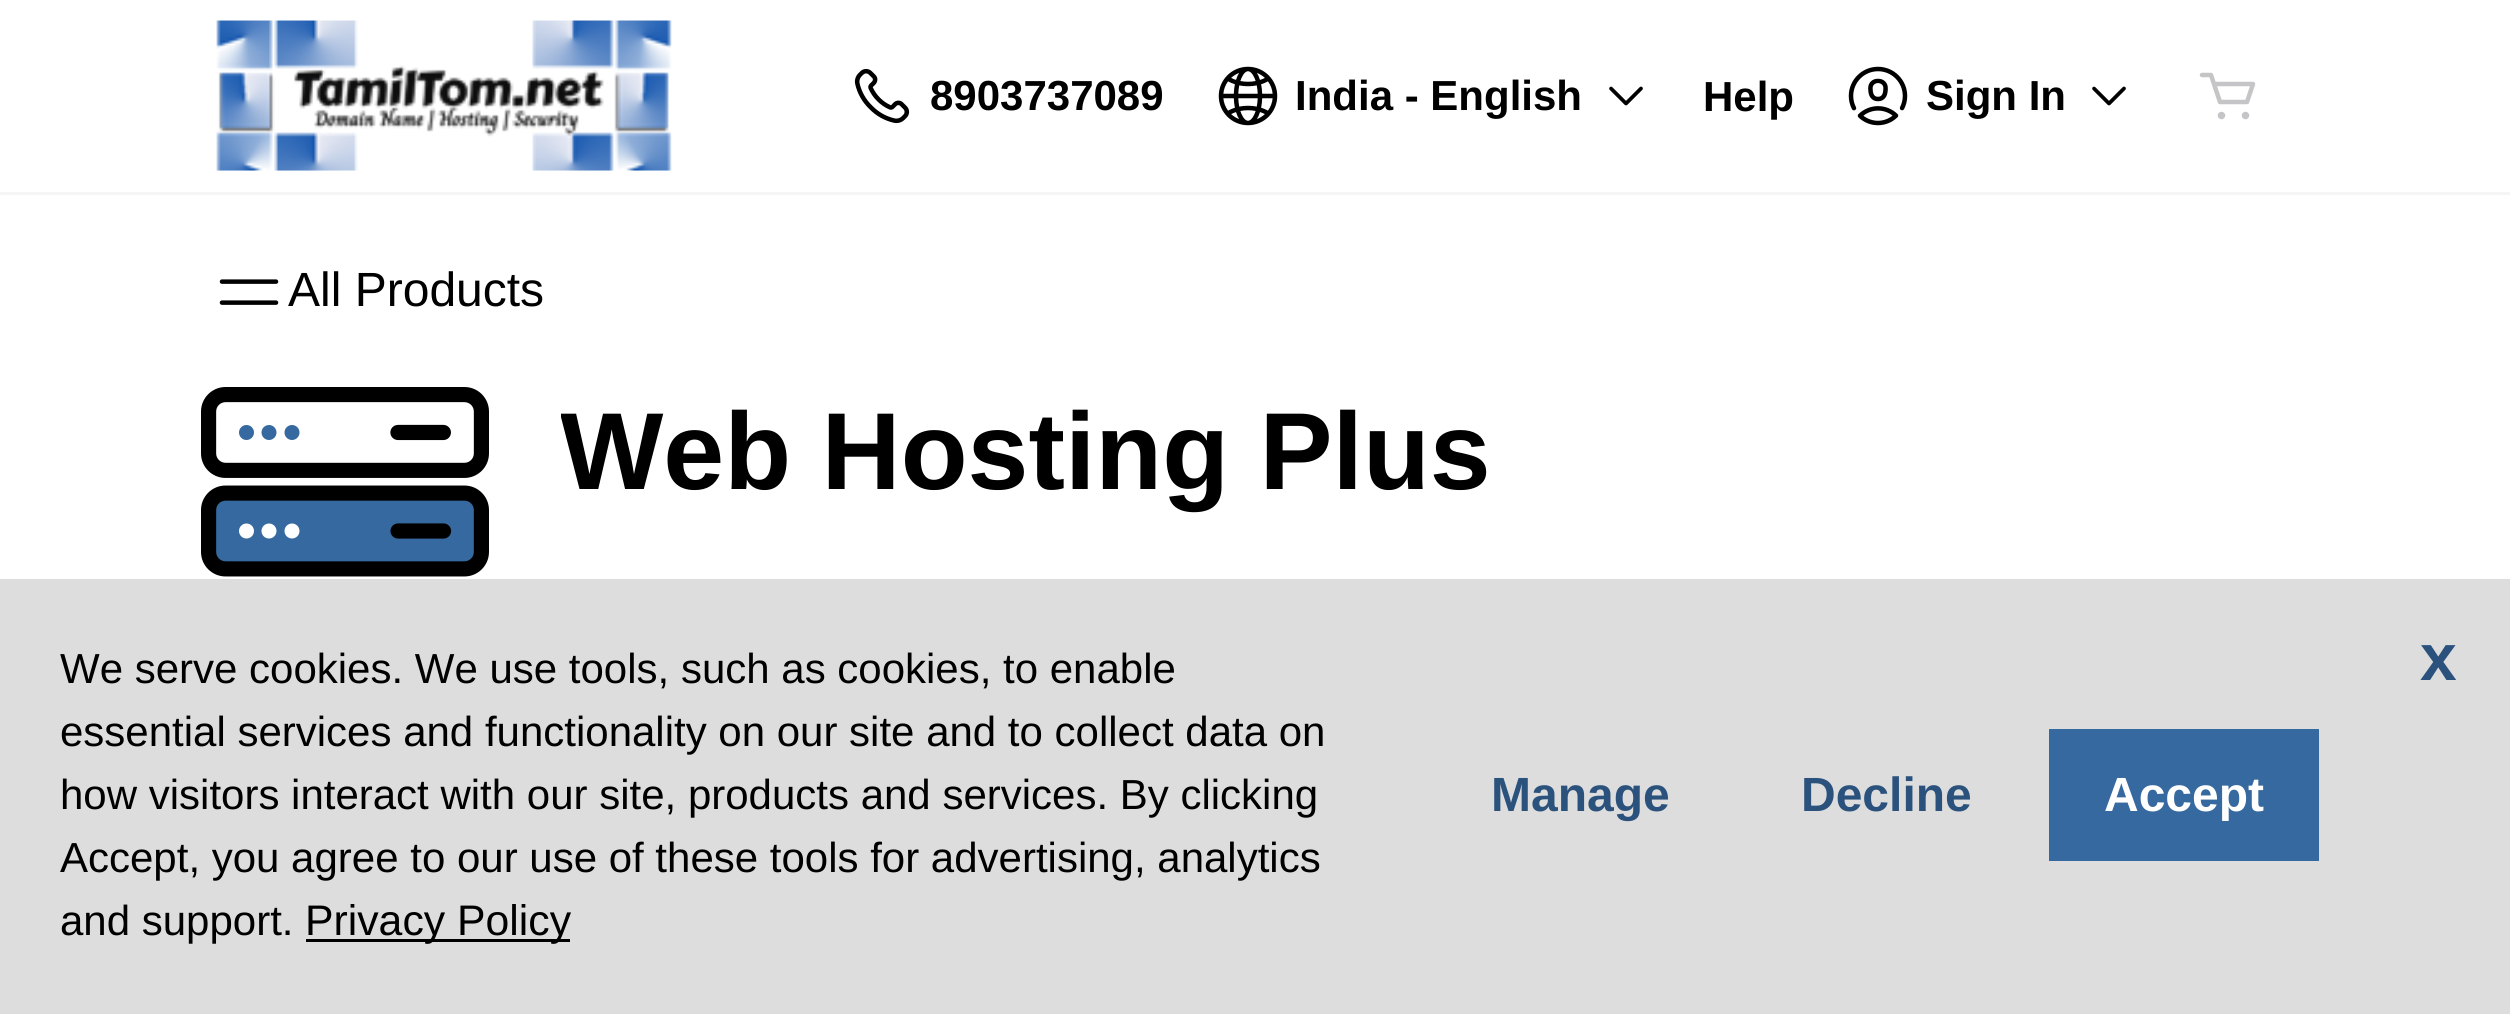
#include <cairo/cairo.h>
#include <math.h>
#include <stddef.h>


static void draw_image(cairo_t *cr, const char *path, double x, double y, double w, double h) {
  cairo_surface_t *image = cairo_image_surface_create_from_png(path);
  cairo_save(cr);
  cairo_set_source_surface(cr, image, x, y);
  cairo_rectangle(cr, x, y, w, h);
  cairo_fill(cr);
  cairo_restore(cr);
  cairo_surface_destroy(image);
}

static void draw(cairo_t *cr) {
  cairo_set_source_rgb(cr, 1, 1, 1);
  cairo_paint(cr);
  cairo_set_source_rgb(cr, 245 / 255.0, 245 / 255.0, 245 / 255.0);
  cairo_rectangle(cr, 0, 192, 2510, 3);
  cairo_fill(cr);
  draw_image(cr, "images/1.png", 216, 20, 456, 151);
  draw_image(cr, "images/2.png", 854, 68, 56, 56);
  draw_image(cr, "images/3.png", 1218, 66, 60, 60);
  draw_image(cr, "images/4.png", 1609, 86, 34, 20);
  draw_image(cr, "images/5.png", 1848, 66, 60, 60);
  draw_image(cr, "images/4.png", 2092, 86, 34, 20);
  draw_image(cr, "images/6.png", 2199, 72, 57, 48);
  draw_image(cr, "images/7.png", 219, 279, 60, 26);
  draw_image(cr, "images/8.png", 201, 387, 288, 190);
  cairo_set_source_rgb(cr, 221 / 255.0, 221 / 255.0, 221 / 255.0);
  cairo_rectangle(cr, 0, 579, 2510, 435);
  cairo_fill(cr);
  cairo_set_source_rgb(cr, 0, 0, 0);
  cairo_rectangle(cr, 306, 939, 264, 3);
  cairo_fill(cr);
  cairo_set_source_rgb(cr, 54 / 255.0, 105 / 255.0, 159 / 255.0);
  cairo_rectangle(cr, 2049, 729, 270, 132);
  cairo_fill(cr);
  cairo_select_font_face(cr, "Liberation Sans", CAIRO_FONT_SLANT_NORMAL, CAIRO_FONT_WEIGHT_BOLD);
  cairo_set_font_size(cr, 42);
  cairo_set_source_rgb(cr, 0, 0, 0);
  cairo_move_to(cr, 930, 110);
  cairo_show_text(cr, "8903737089");
  cairo_move_to(cr, 1295, 110);
  cairo_show_text(cr, "India - English");
  cairo_move_to(cr, 1703, 111);
  cairo_show_text(cr, "Help");
  cairo_move_to(cr, 1926, 110);
  cairo_show_text(cr, "Sign In");
  cairo_select_font_face(cr, "Liberation Sans", CAIRO_FONT_SLANT_NORMAL, CAIRO_FONT_WEIGHT_NORMAL);
  cairo_set_font_size(cr, 48);
  cairo_move_to(cr, 288, 306);
  cairo_show_text(cr, "All Products");
  cairo_save(cr);
  cairo_rectangle(cr, 561, 387, 1752, 444);
  cairo_clip(cr);
  cairo_select_font_face(cr, "Liberation Sans", CAIRO_FONT_SLANT_NORMAL, CAIRO_FONT_WEIGHT_BOLD);
  cairo_set_font_size(cr, 109.5);
  cairo_move_to(cr, 560, 489);
  cairo_show_text(cr, "Web Hosting Plus");
  cairo_restore(cr);
  cairo_set_font_size(cr, 42);
  cairo_move_to(cr, 60, 683);
  cairo_show_text(cr, "We serve cookies. We use tools, such as cookies, to enable");
  cairo_move_to(cr, 60, 746);
  cairo_show_text(cr, "essential services and functionality on our site and to collect data on");
  cairo_move_to(cr, 60, 809);
  cairo_show_text(cr, "how visitors interact with our site, products and services. By clicking");
  cairo_move_to(cr, 60, 872);
  cairo_show_text(cr, "Accept, you agree to our use of these tools for advertising, analytics");
  cairo_move_to(cr, 60, 935);
  cairo_show_text(cr, "and support.");
  cairo_set_font_size(cr, 42.75);
  cairo_move_to(cr, 305, 935);
  cairo_show_text(cr, "Privacy Policy");
  cairo_select_font_face(cr, "Liberation Sans", CAIRO_FONT_SLANT_NORMAL, CAIRO_FONT_WEIGHT_BOLD);
  cairo_set_font_size(cr, 48);
  cairo_set_source_rgb(cr, 42 / 255.0, 82 / 255.0, 125 / 255.0);
  cairo_move_to(cr, 1491, 811);
  cairo_show_text(cr, "Manage");
  cairo_move_to(cr, 1801, 811);
  cairo_show_text(cr, "Decline");
  cairo_set_source_rgb(cr, 1, 1, 1);
  cairo_move_to(cr, 2104, 811);
  cairo_show_text(cr, "Accept");
  cairo_set_font_size(cr, 66);
  cairo_set_source_rgb(cr, 42 / 255.0, 82 / 255.0, 125 / 255.0);
  cairo_move_to(cr, 2420, 680);
  cairo_show_text(cr, "x");
}

int main(void) {
  cairo_surface_t *surface = cairo_image_surface_create(CAIRO_FORMAT_RGB24, 2510, 1014);
  cairo_t *cr = cairo_create(surface);
  cairo_font_options_t *options = cairo_font_options_create();
  cairo_font_options_set_hint_metrics(options, CAIRO_HINT_METRICS_OFF);
  cairo_font_options_set_hint_style(options, CAIRO_HINT_STYLE_NONE);
  cairo_set_font_options(cr, options);
  cairo_set_miter_limit(cr, 4);
  draw(cr);
  cairo_surface_write_to_png(surface, "out.png");
  cairo_font_options_destroy(options);
  cairo_destroy(cr);
  cairo_surface_destroy(surface);
  return 0;
}
